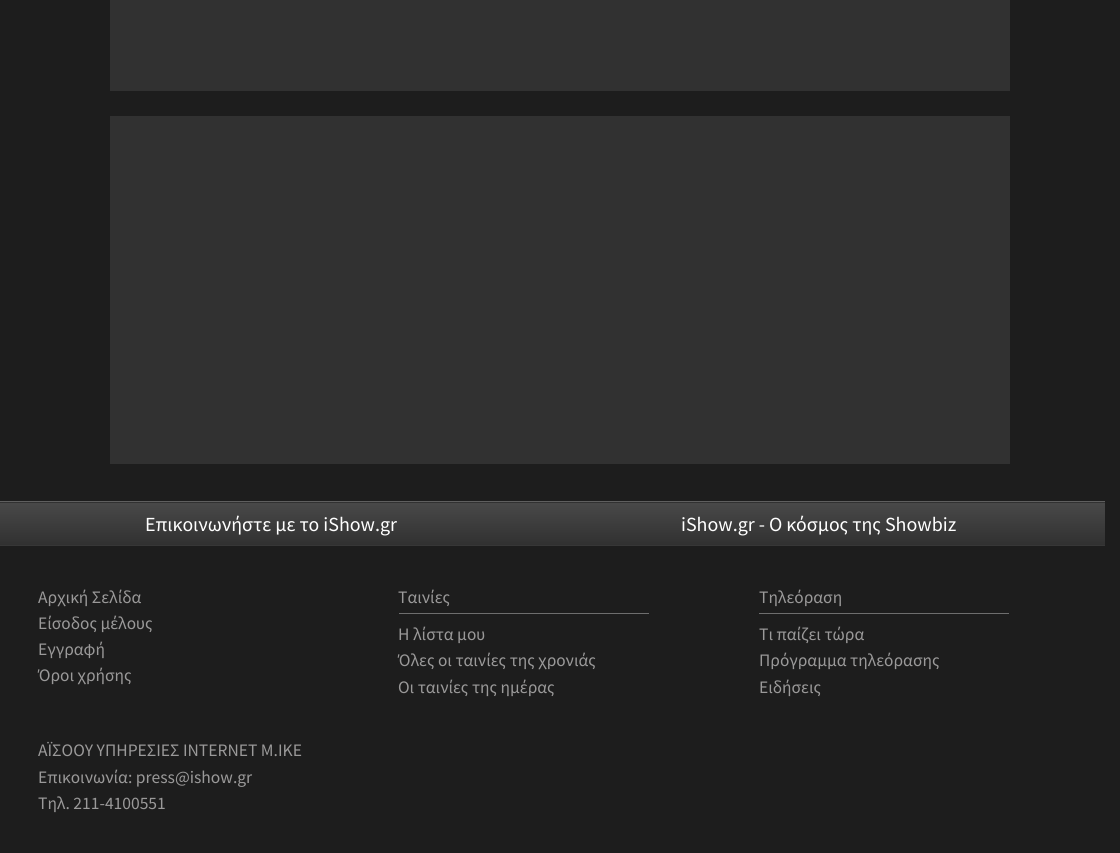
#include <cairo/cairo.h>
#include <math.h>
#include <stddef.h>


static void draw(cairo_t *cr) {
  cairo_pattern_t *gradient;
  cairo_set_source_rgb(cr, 29 / 255.0, 29 / 255.0, 29 / 255.0);
  cairo_paint(cr);
  cairo_set_source_rgb(cr, 49 / 255.0, 49 / 255.0, 49 / 255.0);
  cairo_rectangle(cr, 110, 0, 900, 91);
  cairo_fill(cr);
  cairo_rectangle(cr, 110, 116, 900, 348);
  cairo_fill(cr);
  gradient = cairo_pattern_create_linear(545, 460, 545, 503);
  cairo_pattern_add_color_stop_rgba(gradient, 0, 73 / 255.0, 73 / 255.0, 73 / 255.0, 1);
  cairo_pattern_add_color_stop_rgba(gradient, 1, 49 / 255.0, 49 / 255.0, 49 / 255.0, 1);
  cairo_set_source(cr, gradient);
  cairo_pattern_destroy(gradient);
  cairo_rectangle(cr, 0, 502, 1105, 1);
  cairo_fill(cr);
  gradient = cairo_pattern_create_linear(545, 502, 545, 545);
  cairo_pattern_add_color_stop_rgba(gradient, 0, 73 / 255.0, 73 / 255.0, 73 / 255.0, 1);
  cairo_pattern_add_color_stop_rgba(gradient, 1, 49 / 255.0, 49 / 255.0, 49 / 255.0, 1);
  cairo_set_source(cr, gradient);
  cairo_pattern_destroy(gradient);
  cairo_rectangle(cr, 0, 503, 1105, 42);
  cairo_fill(cr);
  cairo_set_source_rgb(cr, 95 / 255.0, 95 / 255.0, 95 / 255.0);
  cairo_rectangle(cr, 0, 501, 1105, 1);
  cairo_fill(cr);
  cairo_set_source_rgb(cr, 55 / 255.0, 55 / 255.0, 55 / 255.0);
  cairo_rectangle(cr, 0, 545, 1105, 1);
  cairo_fill(cr);
  cairo_set_source_rgb(cr, 110 / 255.0, 110 / 255.0, 110 / 255.0);
  cairo_rectangle(cr, 399, 613, 250, 1);
  cairo_fill(cr);
  cairo_rectangle(cr, 759, 613, 250, 1);
  cairo_fill(cr);
  cairo_select_font_face(cr, "Source Sans Pro", CAIRO_FONT_SLANT_NORMAL, CAIRO_FONT_WEIGHT_NORMAL);
  cairo_set_font_size(cr, 20);
  cairo_set_source_rgb(cr, 1, 1, 1);
  cairo_move_to(cr, 145, 531);
  cairo_show_text(cr, "Επικοινωνήστε με το iShow.gr");
  cairo_move_to(cr, 681, 531);
  cairo_show_text(cr, "iShow.gr - Ο κόσμος της Showbiz");
  cairo_set_font_size(cr, 17.5);
  cairo_set_source_rgb(cr, 154 / 255.0, 153 / 255.0, 153 / 255.0);
  cairo_move_to(cr, 38, 603);
  cairo_show_text(cr, "Αρχική Σελίδα");
  cairo_move_to(cr, 38, 629);
  cairo_show_text(cr, "Είσοδος μέλους");
  cairo_move_to(cr, 38, 655);
  cairo_show_text(cr, "Εγγραφή");
  cairo_move_to(cr, 38, 681);
  cairo_show_text(cr, "Όροι χρήσης");
  cairo_move_to(cr, 398, 603);
  cairo_show_text(cr, "Ταινίες");
  cairo_move_to(cr, 398, 640);
  cairo_show_text(cr, "Η λίστα μου");
  cairo_move_to(cr, 398, 666);
  cairo_show_text(cr, "Όλες οι ταινίες της χρονιάς");
  cairo_move_to(cr, 398, 693);
  cairo_show_text(cr, "Οι ταινίες της ημέρας");
  cairo_move_to(cr, 759, 603);
  cairo_show_text(cr, "Τηλεόραση");
  cairo_move_to(cr, 759, 640);
  cairo_show_text(cr, "Τι παίζει τώρα");
  cairo_move_to(cr, 759, 666);
  cairo_show_text(cr, "Πρόγραμμα τηλεόρασης");
  cairo_move_to(cr, 759, 693);
  cairo_show_text(cr, "Ειδήσεις");
  cairo_move_to(cr, 38, 756);
  cairo_show_text(cr, "ΑΪΣΟΟΥ ΥΠΗΡΕΣΙΕΣ INTERNET Μ.ΙΚΕ");
  cairo_move_to(cr, 38, 783);
  cairo_show_text(cr, "Επικοινωνία: press@ishow.gr");
  cairo_move_to(cr, 38, 809);
  cairo_show_text(cr, "Τηλ. 211-4100551");
}

int main(void) {
  cairo_surface_t *surface = cairo_image_surface_create(CAIRO_FORMAT_RGB24, 1120, 853);
  cairo_t *cr = cairo_create(surface);
  cairo_font_options_t *options = cairo_font_options_create();
  cairo_font_options_set_hint_metrics(options, CAIRO_HINT_METRICS_OFF);
  cairo_font_options_set_hint_style(options, CAIRO_HINT_STYLE_NONE);
  cairo_set_font_options(cr, options);
  cairo_set_miter_limit(cr, 4);
  draw(cr);
  cairo_surface_write_to_png(surface, "out.png");
  cairo_font_options_destroy(options);
  cairo_destroy(cr);
  cairo_surface_destroy(surface);
  return 0;
}
